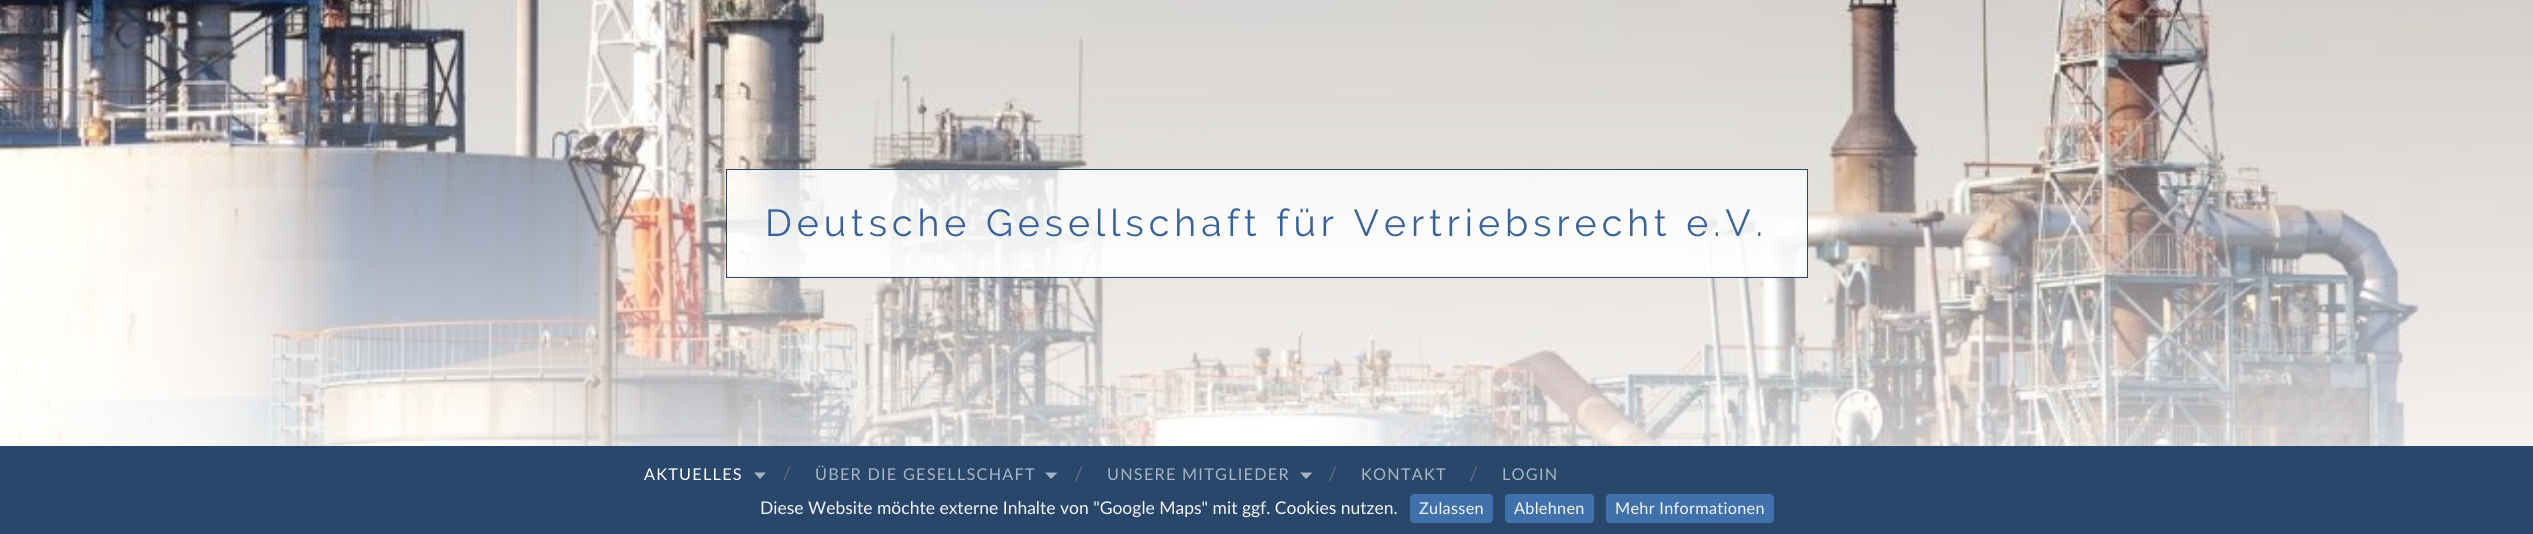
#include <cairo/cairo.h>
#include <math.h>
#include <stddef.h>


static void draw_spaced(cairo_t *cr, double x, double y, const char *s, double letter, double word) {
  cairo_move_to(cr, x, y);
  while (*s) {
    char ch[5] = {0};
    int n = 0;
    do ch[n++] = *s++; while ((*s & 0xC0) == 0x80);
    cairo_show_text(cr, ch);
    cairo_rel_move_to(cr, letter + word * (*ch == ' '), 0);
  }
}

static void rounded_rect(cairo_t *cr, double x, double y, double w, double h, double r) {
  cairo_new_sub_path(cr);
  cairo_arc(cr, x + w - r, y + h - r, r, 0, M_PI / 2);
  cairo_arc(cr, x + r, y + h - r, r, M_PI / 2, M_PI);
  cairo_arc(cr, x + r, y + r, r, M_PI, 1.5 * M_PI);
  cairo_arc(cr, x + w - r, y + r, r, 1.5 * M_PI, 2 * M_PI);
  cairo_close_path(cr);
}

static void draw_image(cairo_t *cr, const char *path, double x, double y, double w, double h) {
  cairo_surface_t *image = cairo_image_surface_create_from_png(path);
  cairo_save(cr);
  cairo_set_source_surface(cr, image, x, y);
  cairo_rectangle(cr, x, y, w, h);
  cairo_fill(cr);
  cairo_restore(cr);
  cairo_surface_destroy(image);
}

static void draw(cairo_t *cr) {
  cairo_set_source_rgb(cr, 1, 1, 1);
  cairo_paint(cr);
  draw_image(cr, "images/1.png", 0, 0, 2533, 446);
  cairo_rectangle(cr, 726.5, 169.5, 1081, 108);
  cairo_set_source_rgb(cr, 41 / 255.0, 70 / 255.0, 107 / 255.0);
  cairo_set_line_width(cr, 1);
  cairo_stroke(cr);
  cairo_rectangle(cr, 0, 446, 2533, 35);
  cairo_fill(cr);
  cairo_set_source_rgb(cr, 169 / 255.0, 181 / 255.0, 196 / 255.0);
  cairo_new_path(cr);
  cairo_move_to(cr, 754, 472.5);
  cairo_line_to(cr, 766, 472.5);
  cairo_line_to(cr, 760, 479);
  cairo_close_path(cr);
  cairo_fill(cr);
  cairo_new_path(cr);
  cairo_move_to(cr, 1045, 472.5);
  cairo_line_to(cr, 1057.5, 472.5);
  cairo_line_to(cr, 1051, 479);
  cairo_close_path(cr);
  cairo_fill(cr);
  cairo_new_path(cr);
  cairo_move_to(cr, 1300, 472.5);
  cairo_line_to(cr, 1312.5, 472.5);
  cairo_line_to(cr, 1306, 479);
  cairo_close_path(cr);
  cairo_fill(cr);
  cairo_select_font_face(cr, "Raleway", CAIRO_FONT_SLANT_NORMAL, CAIRO_FONT_WEIGHT_NORMAL);
  cairo_set_font_size(cr, 37.5);
  cairo_set_source_rgb(cr, 57 / 255.0, 98 / 255.0, 152 / 255.0);
  draw_spaced(cr, 765, 236, "Deutsche Gesellschaft für Vertriebsrecht e.V.", 5, 0);
  cairo_select_font_face(cr, "Lato", CAIRO_FONT_SLANT_NORMAL, CAIRO_FONT_WEIGHT_NORMAL);
  cairo_set_font_size(cr, 16.25);
  cairo_set_source_rgb(cr, 1, 1, 1);
  draw_spaced(cr, 644, 480, "AKTUELLES", 1.25, 0);
  cairo_set_font_size(cr, 20);
  cairo_set_source_rgb(cr, 102 / 255.0, 102 / 255.0, 136 / 255.0);
  cairo_move_to(cr, 782, 481);
  cairo_show_text(cr, "/");
  cairo_set_font_size(cr, 16.25);
  cairo_set_source_rgb(cr, 169 / 255.0, 181 / 255.0, 196 / 255.0);
  draw_spaced(cr, 815, 480, "ÜBER DIE GESELLSCHAFT", 1.25, 0);
  cairo_set_font_size(cr, 20);
  cairo_set_source_rgb(cr, 102 / 255.0, 102 / 255.0, 136 / 255.0);
  cairo_move_to(cr, 1074, 481);
  cairo_show_text(cr, "/");
  cairo_set_font_size(cr, 16.25);
  cairo_set_source_rgb(cr, 169 / 255.0, 181 / 255.0, 196 / 255.0);
  draw_spaced(cr, 1107, 480, "UNSERE MITGLIEDER", 1.25, 0);
  cairo_set_font_size(cr, 20);
  cairo_set_source_rgb(cr, 102 / 255.0, 102 / 255.0, 136 / 255.0);
  cairo_move_to(cr, 1328, 481);
  cairo_show_text(cr, "/");
  cairo_set_font_size(cr, 16.25);
  cairo_set_source_rgb(cr, 169 / 255.0, 181 / 255.0, 196 / 255.0);
  draw_spaced(cr, 1361, 480, "KONTAKT", 1.25, 0);
  cairo_set_font_size(cr, 20);
  cairo_set_source_rgb(cr, 102 / 255.0, 102 / 255.0, 136 / 255.0);
  cairo_move_to(cr, 1469, 481);
  cairo_show_text(cr, "/");
  cairo_set_font_size(cr, 16.25);
  cairo_set_source_rgb(cr, 169 / 255.0, 181 / 255.0, 196 / 255.0);
  draw_spaced(cr, 1502, 480, "LOGIN", 1.25, 0);
  cairo_set_source_rgb(cr, 41 / 255.0, 70 / 255.0, 107 / 255.0);
  cairo_rectangle(cr, 0, 481, 2533, 53);
  cairo_fill(cr);
  cairo_set_font_size(cr, 17.5);
  cairo_set_source_rgb(cr, 244 / 255.0, 244 / 255.0, 244 / 255.0);
  cairo_move_to(cr, 760, 514);
  cairo_show_text(cr, "Diese Website möchte externe Inhalte von \"Google Maps\" mit ggf. Cookies nutzen.");
  cairo_set_source_rgb(cr, 64 / 255.0, 113 / 255.0, 171 / 255.0);
  rounded_rect(cr, 1410, 494, 83, 29, 4);
  cairo_fill(cr);
  cairo_set_font_size(cr, 16.25);
  cairo_set_source_rgb(cr, 244 / 255.0, 244 / 255.0, 244 / 255.0);
  draw_spaced(cr, 1419, 514, "Zulassen", 0.3, 0);
  cairo_set_source_rgb(cr, 64 / 255.0, 113 / 255.0, 171 / 255.0);
  rounded_rect(cr, 1505, 494, 89, 29, 4);
  cairo_fill(cr);
  cairo_set_source_rgb(cr, 244 / 255.0, 244 / 255.0, 244 / 255.0);
  draw_spaced(cr, 1514, 514, "Ablehnen", 0.3, 0);
  cairo_set_source_rgb(cr, 64 / 255.0, 113 / 255.0, 171 / 255.0);
  rounded_rect(cr, 1606, 494, 168, 29, 4);
  cairo_fill(cr);
  cairo_set_source_rgb(cr, 244 / 255.0, 244 / 255.0, 244 / 255.0);
  draw_spaced(cr, 1615, 514, "Mehr Informationen", 0.3, 0);
}

int main(void) {
  cairo_surface_t *surface = cairo_image_surface_create(CAIRO_FORMAT_RGB24, 2533, 534);
  cairo_t *cr = cairo_create(surface);
  cairo_font_options_t *options = cairo_font_options_create();
  cairo_font_options_set_hint_metrics(options, CAIRO_HINT_METRICS_OFF);
  cairo_font_options_set_hint_style(options, CAIRO_HINT_STYLE_NONE);
  cairo_set_font_options(cr, options);
  cairo_set_miter_limit(cr, 4);
  draw(cr);
  cairo_surface_write_to_png(surface, "out.png");
  cairo_font_options_destroy(options);
  cairo_destroy(cr);
  cairo_surface_destroy(surface);
  return 0;
}
